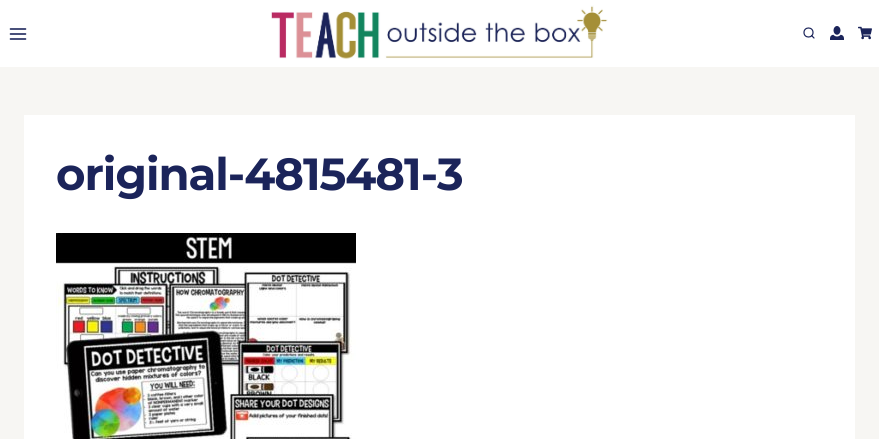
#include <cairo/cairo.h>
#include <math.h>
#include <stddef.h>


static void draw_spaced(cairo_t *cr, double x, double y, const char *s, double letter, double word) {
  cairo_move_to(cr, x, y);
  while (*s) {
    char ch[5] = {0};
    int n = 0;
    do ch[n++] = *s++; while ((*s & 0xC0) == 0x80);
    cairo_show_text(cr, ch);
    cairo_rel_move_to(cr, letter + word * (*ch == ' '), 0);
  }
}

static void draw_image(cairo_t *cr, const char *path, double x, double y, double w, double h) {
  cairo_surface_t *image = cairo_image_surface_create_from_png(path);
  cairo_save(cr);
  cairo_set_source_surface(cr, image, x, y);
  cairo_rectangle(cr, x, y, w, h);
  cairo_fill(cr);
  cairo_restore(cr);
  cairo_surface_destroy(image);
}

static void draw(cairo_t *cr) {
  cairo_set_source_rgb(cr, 247 / 255.0, 246 / 255.0, 243 / 255.0);
  cairo_paint(cr);
  cairo_set_source_rgb(cr, 1, 1, 1);
  cairo_rectangle(cr, 0, 0, 879, 67);
  cairo_fill(cr);
  draw_image(cr, "images/1.png", 9, 28, 18, 12);
  draw_image(cr, "images/2.png", 271, 5, 337, 54);
  cairo_arc(cr, 808.5, 32.5, 4.5, 0, 2 * M_PI);
  cairo_set_source_rgb(cr, 27 / 255.0, 36 / 255.0, 90 / 255.0);
  cairo_set_line_width(cr, 1.2);
  cairo_stroke(cr);
  cairo_new_path(cr);
  cairo_move_to(cr, 814, 38);
  cairo_line_to(cr, 811.5, 35.5);
  cairo_set_line_cap(cr, CAIRO_LINE_CAP_ROUND);
  cairo_set_line_join(cr, CAIRO_LINE_JOIN_ROUND);
  cairo_stroke(cr);
  draw_image(cr, "images/3.png", 830, 26, 14, 14);
  draw_image(cr, "images/4.png", 858, 26, 14, 14);
  cairo_set_source_rgb(cr, 1, 1, 1);
  cairo_rectangle(cr, 24, 115, 831, 324);
  cairo_fill(cr);
  draw_image(cr, "images/5.png", 56, 233, 300, 206);
  cairo_select_font_face(cr, "Montserrat", CAIRO_FONT_SLANT_NORMAL, CAIRO_FONT_WEIGHT_BOLD);
  cairo_set_font_size(cr, 45);
  cairo_set_source_rgb(cr, 27 / 255.0, 36 / 255.0, 90 / 255.0);
  draw_spaced(cr, 56, 190, "original-4815481-3", -1, 0);
}

int main(void) {
  cairo_surface_t *surface = cairo_image_surface_create(CAIRO_FORMAT_RGB24, 879, 439);
  cairo_t *cr = cairo_create(surface);
  cairo_font_options_t *options = cairo_font_options_create();
  cairo_font_options_set_hint_metrics(options, CAIRO_HINT_METRICS_OFF);
  cairo_font_options_set_hint_style(options, CAIRO_HINT_STYLE_NONE);
  cairo_set_font_options(cr, options);
  cairo_set_miter_limit(cr, 4);
  draw(cr);
  cairo_surface_write_to_png(surface, "out.png");
  cairo_font_options_destroy(options);
  cairo_destroy(cr);
  cairo_surface_destroy(surface);
  return 0;
}
